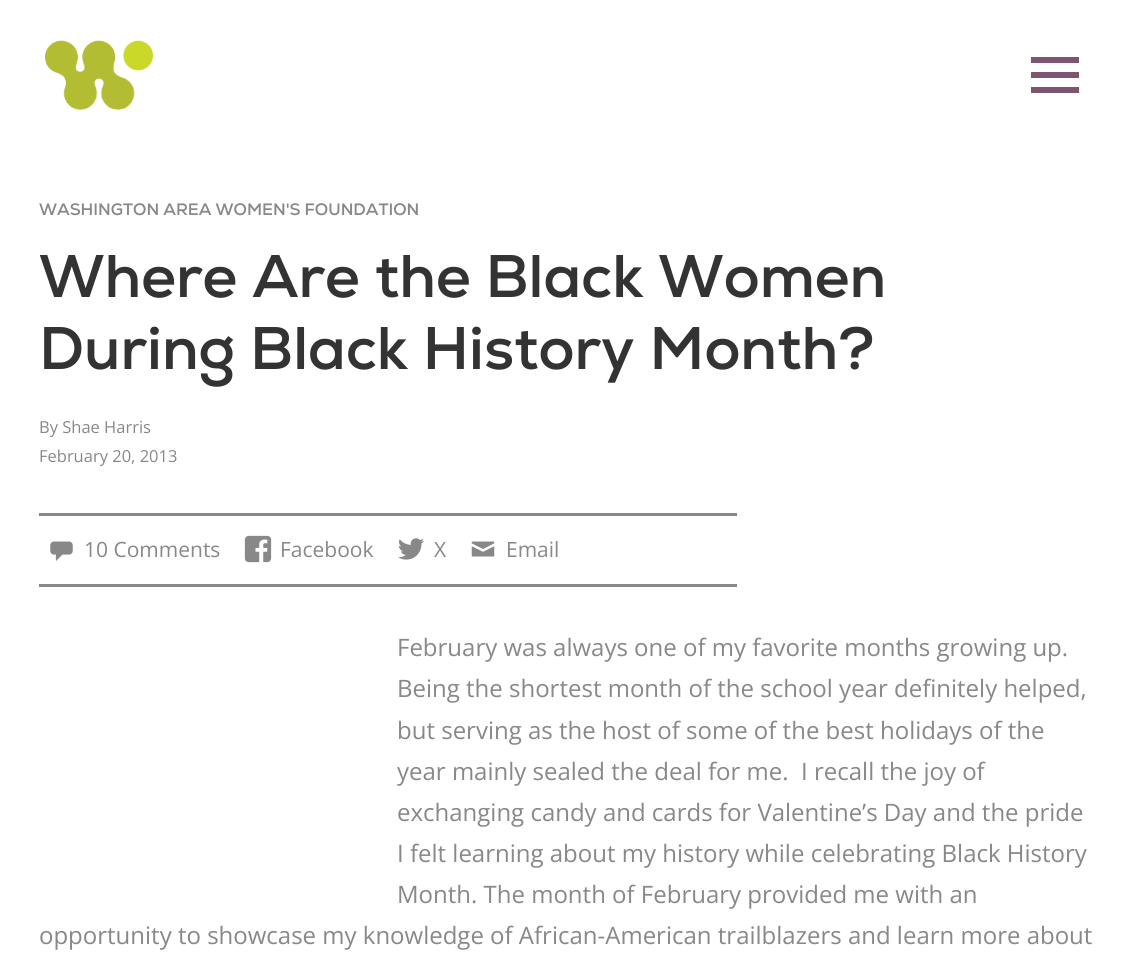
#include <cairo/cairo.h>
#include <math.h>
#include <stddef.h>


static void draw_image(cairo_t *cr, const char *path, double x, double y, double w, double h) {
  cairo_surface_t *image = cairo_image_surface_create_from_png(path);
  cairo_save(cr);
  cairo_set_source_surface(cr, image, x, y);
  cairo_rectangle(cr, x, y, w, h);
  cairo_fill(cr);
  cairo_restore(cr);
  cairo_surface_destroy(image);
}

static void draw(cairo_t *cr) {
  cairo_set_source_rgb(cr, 1, 1, 1);
  cairo_paint(cr);
  draw_image(cr, "images/1.png", 45, 40, 108, 70);
  cairo_set_source_rgb(cr, 126 / 255.0, 84 / 255.0, 115 / 255.0);
  cairo_rectangle(cr, 1032, 73, 46, 4);
  cairo_fill_preserve(cr);
  cairo_stroke(cr);
  cairo_rectangle(cr, 1032, 58, 46, 4);
  cairo_fill_preserve(cr);
  cairo_stroke(cr);
  cairo_rectangle(cr, 1032, 88, 46, 4);
  cairo_fill_preserve(cr);
  cairo_stroke(cr);
  cairo_set_source_rgb(cr, 136 / 255.0, 136 / 255.0, 136 / 255.0);
  cairo_rectangle(cr, 39, 513, 698, 3);
  cairo_fill(cr);
  cairo_rectangle(cr, 39, 584, 698, 3);
  cairo_fill(cr);
  draw_image(cr, "images/2.png", 50, 541, 23, 20);
  draw_image(cr, "images/3.png", 244, 535, 28, 28);
  draw_image(cr, "images/4.png", 398, 538, 26, 22);
  draw_image(cr, "images/5.png", 471, 541, 24, 16);
  cairo_select_font_face(cr, "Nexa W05", CAIRO_FONT_SLANT_NORMAL, CAIRO_FONT_WEIGHT_BOLD);
  cairo_set_font_size(cr, 16.5);
  cairo_move_to(cr, 39, 215);
  cairo_show_text(cr, "WASHINGTON AREA WOMEN'S FOUNDATION");
  cairo_set_font_size(cr, 60);
  cairo_set_source_rgb(cr, 51 / 255.0, 51 / 255.0, 51 / 255.0);
  cairo_move_to(cr, 39, 297);
  cairo_show_text(cr, "Where Are the Black Women");
  cairo_move_to(cr, 39, 369);
  cairo_show_text(cr, "During Black History Month?");
  cairo_select_font_face(cr, "Open Sans", CAIRO_FONT_SLANT_NORMAL, CAIRO_FONT_WEIGHT_NORMAL);
  cairo_set_font_size(cr, 16.5);
  cairo_set_source_rgb(cr, 136 / 255.0, 136 / 255.0, 136 / 255.0);
  cairo_move_to(cr, 39, 433);
  cairo_show_text(cr, "By Shae Harris");
  cairo_move_to(cr, 39, 462);
  cairo_show_text(cr, "February 20, 2013");
  cairo_set_font_size(cr, 21);
  cairo_move_to(cr, 84, 557);
  cairo_show_text(cr, "10 Comments");
  cairo_move_to(cr, 280, 557);
  cairo_show_text(cr, "Facebook");
  cairo_move_to(cr, 434, 557);
  cairo_show_text(cr, "X");
  cairo_move_to(cr, 506, 557);
  cairo_show_text(cr, "Email");
  cairo_set_font_size(cr, 24);
  cairo_move_to(cr, 397, 656);
  cairo_show_text(cr, "February was always one of my favorite months growing up.");
  cairo_move_to(cr, 397, 697);
  cairo_show_text(cr, "Being the shortest month of the school year definitely helped,");
  cairo_move_to(cr, 397, 739);
  cairo_show_text(cr, "but serving as the host of some of the best holidays of the");
  cairo_move_to(cr, 397, 780);
  cairo_show_text(cr, "year mainly sealed the deal for me.  I recall the joy of");
  cairo_move_to(cr, 397, 821);
  cairo_show_text(cr, "exchanging candy and cards for Valentine’s Day and the pride");
  cairo_move_to(cr, 397, 862);
  cairo_show_text(cr, "I felt learning about my history while celebrating Black History");
  cairo_move_to(cr, 397, 903);
  cairo_show_text(cr, "Month. The month of February provided me with an");
  cairo_move_to(cr, 39, 944);
  cairo_show_text(cr, "opportunity to showcase my knowledge of African-American trailblazers and learn more about");
}

int main(void) {
  cairo_surface_t *surface = cairo_image_surface_create(CAIRO_FORMAT_RGB24, 1134, 969);
  cairo_t *cr = cairo_create(surface);
  cairo_font_options_t *options = cairo_font_options_create();
  cairo_font_options_set_hint_metrics(options, CAIRO_HINT_METRICS_OFF);
  cairo_font_options_set_hint_style(options, CAIRO_HINT_STYLE_NONE);
  cairo_set_font_options(cr, options);
  cairo_set_miter_limit(cr, 4);
  draw(cr);
  cairo_surface_write_to_png(surface, "out.png");
  cairo_font_options_destroy(options);
  cairo_destroy(cr);
  cairo_surface_destroy(surface);
  return 0;
}
